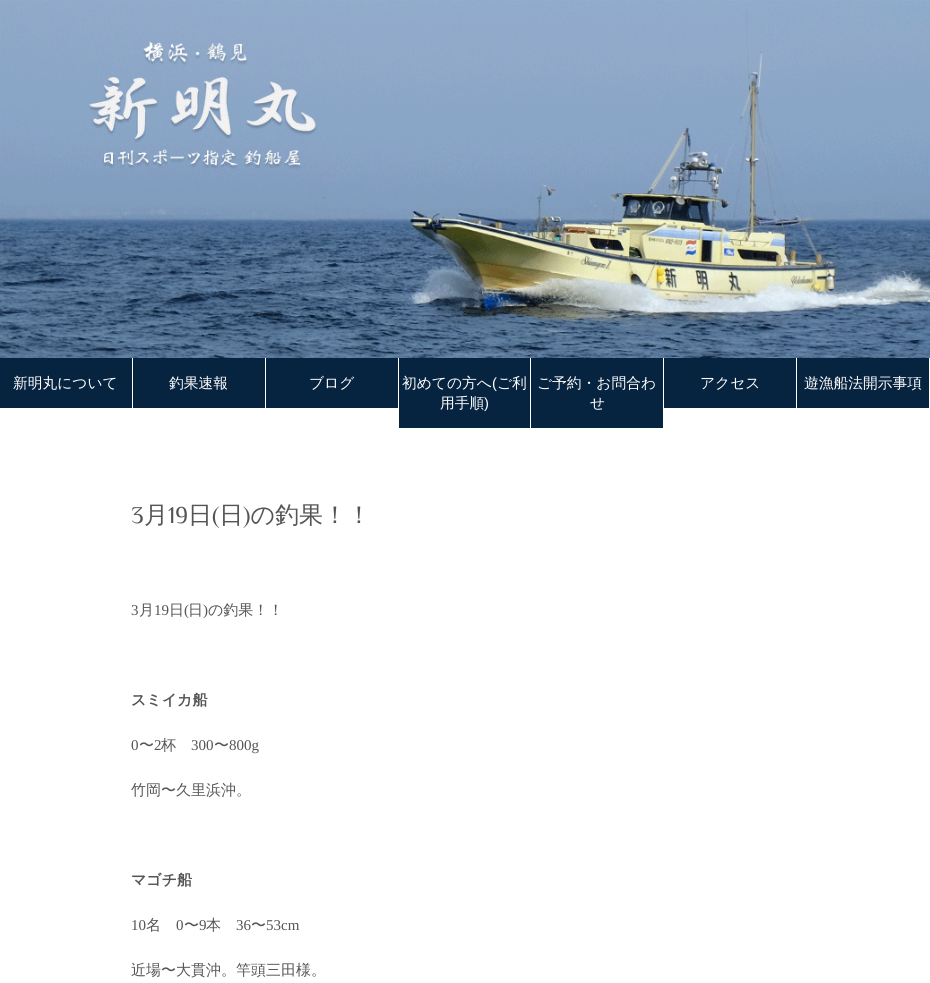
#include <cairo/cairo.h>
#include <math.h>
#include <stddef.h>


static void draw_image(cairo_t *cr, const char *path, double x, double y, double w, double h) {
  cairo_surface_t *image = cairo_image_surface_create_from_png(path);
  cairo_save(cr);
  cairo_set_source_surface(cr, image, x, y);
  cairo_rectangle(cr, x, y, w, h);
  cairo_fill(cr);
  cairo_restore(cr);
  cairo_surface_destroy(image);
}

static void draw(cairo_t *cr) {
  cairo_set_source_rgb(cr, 1, 1, 1);
  cairo_paint(cr);
  draw_image(cr, "images/1.png", 0, 0, 930, 358);
  cairo_set_source_rgb(cr, 6 / 255.0, 35 / 255.0, 63 / 255.0);
  cairo_rectangle(cr, 0, 358, 132, 50);
  cairo_fill(cr);
  cairo_rectangle(cr, 133, 358, 132, 50);
  cairo_fill(cr);
  cairo_rectangle(cr, 266, 358, 132, 50);
  cairo_fill(cr);
  cairo_rectangle(cr, 399, 358, 131, 70);
  cairo_fill(cr);
  cairo_rectangle(cr, 531, 358, 132, 70);
  cairo_fill(cr);
  cairo_rectangle(cr, 664, 358, 132, 50);
  cairo_fill(cr);
  cairo_rectangle(cr, 797, 358, 132, 50);
  cairo_fill(cr);
  cairo_select_font_face(cr, "WenQuanYi Zen Hei Medium", CAIRO_FONT_SLANT_NORMAL, CAIRO_FONT_WEIGHT_NORMAL);
  cairo_set_font_size(cr, 14.75);
  cairo_set_source_rgb(cr, 1, 1, 1);
  cairo_move_to(cr, 13, 388);
  cairo_show_text(cr, "新明丸について");
  cairo_move_to(cr, 169, 388);
  cairo_show_text(cr, "釣果速報");
  cairo_move_to(cr, 309, 388);
  cairo_show_text(cr, "ブログ");
  cairo_move_to(cr, 402, 388);
  cairo_show_text(cr, "初めての方へ");
  cairo_select_font_face(cr, "Liberation Sans", CAIRO_FONT_SLANT_NORMAL, CAIRO_FONT_WEIGHT_NORMAL);
  cairo_move_to(cr, 492, 388);
  cairo_show_text(cr, "(");
  cairo_select_font_face(cr, "WenQuanYi Zen Hei Medium", CAIRO_FONT_SLANT_NORMAL, CAIRO_FONT_WEIGHT_NORMAL);
  cairo_move_to(cr, 497, 388);
  cairo_show_text(cr, "ご利");
  cairo_move_to(cr, 440, 408);
  cairo_show_text(cr, "用手順");
  cairo_select_font_face(cr, "Liberation Sans", CAIRO_FONT_SLANT_NORMAL, CAIRO_FONT_WEIGHT_NORMAL);
  cairo_move_to(cr, 484, 408);
  cairo_show_text(cr, ")");
  cairo_select_font_face(cr, "WenQuanYi Zen Hei Medium", CAIRO_FONT_SLANT_NORMAL, CAIRO_FONT_WEIGHT_NORMAL);
  cairo_move_to(cr, 537, 388);
  cairo_show_text(cr, "ご予約・お問合わ");
  cairo_move_to(cr, 590, 408);
  cairo_show_text(cr, "せ");
  cairo_move_to(cr, 700, 388);
  cairo_show_text(cr, "アクセス");
  cairo_move_to(cr, 804, 388);
  cairo_show_text(cr, "遊漁船法開示事項");
  cairo_set_font_size(cr, 24);
  cairo_set_source_rgb(cr, 85 / 255.0, 85 / 255.0, 85 / 255.0);
  cairo_move_to(cr, 144, 523);
  cairo_show_text(cr, "月");
  cairo_select_font_face(cr, "Philosopher", CAIRO_FONT_SLANT_NORMAL, CAIRO_FONT_WEIGHT_NORMAL);
  cairo_move_to(cr, 168, 523);
  cairo_show_text(cr, "19");
  cairo_select_font_face(cr, "WenQuanYi Zen Hei Medium", CAIRO_FONT_SLANT_NORMAL, CAIRO_FONT_WEIGHT_NORMAL);
  cairo_move_to(cr, 188, 523);
  cairo_show_text(cr, "日 日 の釣果！！");
  cairo_select_font_face(cr, "Philosopher", CAIRO_FONT_SLANT_NORMAL, CAIRO_FONT_WEIGHT_NORMAL);
  cairo_move_to(cr, 131, 523);
  cairo_show_text(cr, "3");
  cairo_move_to(cr, 212, 523);
  cairo_show_text(cr, "(");
  cairo_move_to(cr, 243, 523);
  cairo_show_text(cr, ")");
  cairo_select_font_face(cr, "Liberation Serif", CAIRO_FONT_SLANT_NORMAL, CAIRO_FONT_WEIGHT_NORMAL);
  cairo_set_font_size(cr, 15);
  cairo_move_to(cr, 131, 615);
  cairo_show_text(cr, "3");
  cairo_select_font_face(cr, "WenQuanYi Zen Hei Medium", CAIRO_FONT_SLANT_NORMAL, CAIRO_FONT_WEIGHT_NORMAL);
  cairo_move_to(cr, 139, 615);
  cairo_show_text(cr, "月");
  cairo_select_font_face(cr, "Liberation Serif", CAIRO_FONT_SLANT_NORMAL, CAIRO_FONT_WEIGHT_NORMAL);
  cairo_move_to(cr, 154, 615);
  cairo_show_text(cr, "19");
  cairo_select_font_face(cr, "WenQuanYi Zen Hei Medium", CAIRO_FONT_SLANT_NORMAL, CAIRO_FONT_WEIGHT_NORMAL);
  cairo_move_to(cr, 169, 615);
  cairo_show_text(cr, "日");
  cairo_select_font_face(cr, "Liberation Serif", CAIRO_FONT_SLANT_NORMAL, CAIRO_FONT_WEIGHT_NORMAL);
  cairo_move_to(cr, 184, 615);
  cairo_show_text(cr, "(");
  cairo_select_font_face(cr, "WenQuanYi Zen Hei Medium", CAIRO_FONT_SLANT_NORMAL, CAIRO_FONT_WEIGHT_NORMAL);
  cairo_move_to(cr, 188, 615);
  cairo_show_text(cr, "日");
  cairo_select_font_face(cr, "Liberation Serif", CAIRO_FONT_SLANT_NORMAL, CAIRO_FONT_WEIGHT_NORMAL);
  cairo_move_to(cr, 203, 615);
  cairo_show_text(cr, ")");
  cairo_select_font_face(cr, "WenQuanYi Zen Hei Medium", CAIRO_FONT_SLANT_NORMAL, CAIRO_FONT_WEIGHT_NORMAL);
  cairo_move_to(cr, 208, 615);
  cairo_show_text(cr, "の釣果！！");
  cairo_select_font_face(cr, "WenQuanYi Zen Hei", CAIRO_FONT_SLANT_NORMAL, CAIRO_FONT_WEIGHT_BOLD);
  cairo_move_to(cr, 131, 705);
  cairo_show_text(cr, "スミイカ船");
  cairo_select_font_face(cr, "Liberation Serif", CAIRO_FONT_SLANT_NORMAL, CAIRO_FONT_WEIGHT_NORMAL);
  cairo_move_to(cr, 131, 750);
  cairo_show_text(cr, "0");
  cairo_select_font_face(cr, "WenQuanYi Zen Hei Medium", CAIRO_FONT_SLANT_NORMAL, CAIRO_FONT_WEIGHT_NORMAL);
  cairo_move_to(cr, 139, 750);
  cairo_show_text(cr, "〜");
  cairo_select_font_face(cr, "Liberation Serif", CAIRO_FONT_SLANT_NORMAL, CAIRO_FONT_WEIGHT_NORMAL);
  cairo_move_to(cr, 154, 750);
  cairo_show_text(cr, "2");
  cairo_select_font_face(cr, "WenQuanYi Zen Hei Medium", CAIRO_FONT_SLANT_NORMAL, CAIRO_FONT_WEIGHT_NORMAL);
  cairo_move_to(cr, 161, 750);
  cairo_show_text(cr, "杯");
  cairo_select_font_face(cr, "Liberation Serif", CAIRO_FONT_SLANT_NORMAL, CAIRO_FONT_WEIGHT_NORMAL);
  cairo_move_to(cr, 191, 750);
  cairo_show_text(cr, "300");
  cairo_select_font_face(cr, "WenQuanYi Zen Hei Medium", CAIRO_FONT_SLANT_NORMAL, CAIRO_FONT_WEIGHT_NORMAL);
  cairo_move_to(cr, 214, 750);
  cairo_show_text(cr, "〜");
  cairo_select_font_face(cr, "Liberation Serif", CAIRO_FONT_SLANT_NORMAL, CAIRO_FONT_WEIGHT_NORMAL);
  cairo_move_to(cr, 229, 750);
  cairo_show_text(cr, "800g");
  cairo_select_font_face(cr, "WenQuanYi Zen Hei Medium", CAIRO_FONT_SLANT_NORMAL, CAIRO_FONT_WEIGHT_NORMAL);
  cairo_move_to(cr, 131, 795);
  cairo_show_text(cr, "竹岡〜久里浜沖。");
  cairo_select_font_face(cr, "WenQuanYi Zen Hei", CAIRO_FONT_SLANT_NORMAL, CAIRO_FONT_WEIGHT_BOLD);
  cairo_move_to(cr, 131, 885);
  cairo_show_text(cr, "マゴチ船");
  cairo_select_font_face(cr, "Liberation Serif", CAIRO_FONT_SLANT_NORMAL, CAIRO_FONT_WEIGHT_NORMAL);
  cairo_move_to(cr, 131, 930);
  cairo_show_text(cr, "10");
  cairo_select_font_face(cr, "WenQuanYi Zen Hei Medium", CAIRO_FONT_SLANT_NORMAL, CAIRO_FONT_WEIGHT_NORMAL);
  cairo_move_to(cr, 146, 930);
  cairo_show_text(cr, "名");
  cairo_select_font_face(cr, "Liberation Serif", CAIRO_FONT_SLANT_NORMAL, CAIRO_FONT_WEIGHT_NORMAL);
  cairo_move_to(cr, 176, 930);
  cairo_show_text(cr, "0");
  cairo_select_font_face(cr, "WenQuanYi Zen Hei Medium", CAIRO_FONT_SLANT_NORMAL, CAIRO_FONT_WEIGHT_NORMAL);
  cairo_move_to(cr, 184, 930);
  cairo_show_text(cr, "〜");
  cairo_select_font_face(cr, "Liberation Serif", CAIRO_FONT_SLANT_NORMAL, CAIRO_FONT_WEIGHT_NORMAL);
  cairo_move_to(cr, 199, 930);
  cairo_show_text(cr, "9");
  cairo_select_font_face(cr, "WenQuanYi Zen Hei Medium", CAIRO_FONT_SLANT_NORMAL, CAIRO_FONT_WEIGHT_NORMAL);
  cairo_move_to(cr, 206, 930);
  cairo_show_text(cr, "本");
  cairo_select_font_face(cr, "Liberation Serif", CAIRO_FONT_SLANT_NORMAL, CAIRO_FONT_WEIGHT_NORMAL);
  cairo_move_to(cr, 236, 930);
  cairo_show_text(cr, "36");
  cairo_select_font_face(cr, "WenQuanYi Zen Hei Medium", CAIRO_FONT_SLANT_NORMAL, CAIRO_FONT_WEIGHT_NORMAL);
  cairo_move_to(cr, 251, 930);
  cairo_show_text(cr, "〜");
  cairo_select_font_face(cr, "Liberation Serif", CAIRO_FONT_SLANT_NORMAL, CAIRO_FONT_WEIGHT_NORMAL);
  cairo_move_to(cr, 266, 930);
  cairo_show_text(cr, "53cm");
  cairo_select_font_face(cr, "WenQuanYi Zen Hei Medium", CAIRO_FONT_SLANT_NORMAL, CAIRO_FONT_WEIGHT_NORMAL);
  cairo_move_to(cr, 131, 975);
  cairo_show_text(cr, "近場〜大貫沖。竿頭三田様。");
}

int main(void) {
  cairo_surface_t *surface = cairo_image_surface_create(CAIRO_FORMAT_RGB24, 930, 983);
  cairo_t *cr = cairo_create(surface);
  cairo_font_options_t *options = cairo_font_options_create();
  cairo_font_options_set_hint_metrics(options, CAIRO_HINT_METRICS_OFF);
  cairo_font_options_set_hint_style(options, CAIRO_HINT_STYLE_NONE);
  cairo_set_font_options(cr, options);
  cairo_set_miter_limit(cr, 4);
  draw(cr);
  cairo_surface_write_to_png(surface, "out.png");
  cairo_font_options_destroy(options);
  cairo_destroy(cr);
  cairo_surface_destroy(surface);
  return 0;
}
